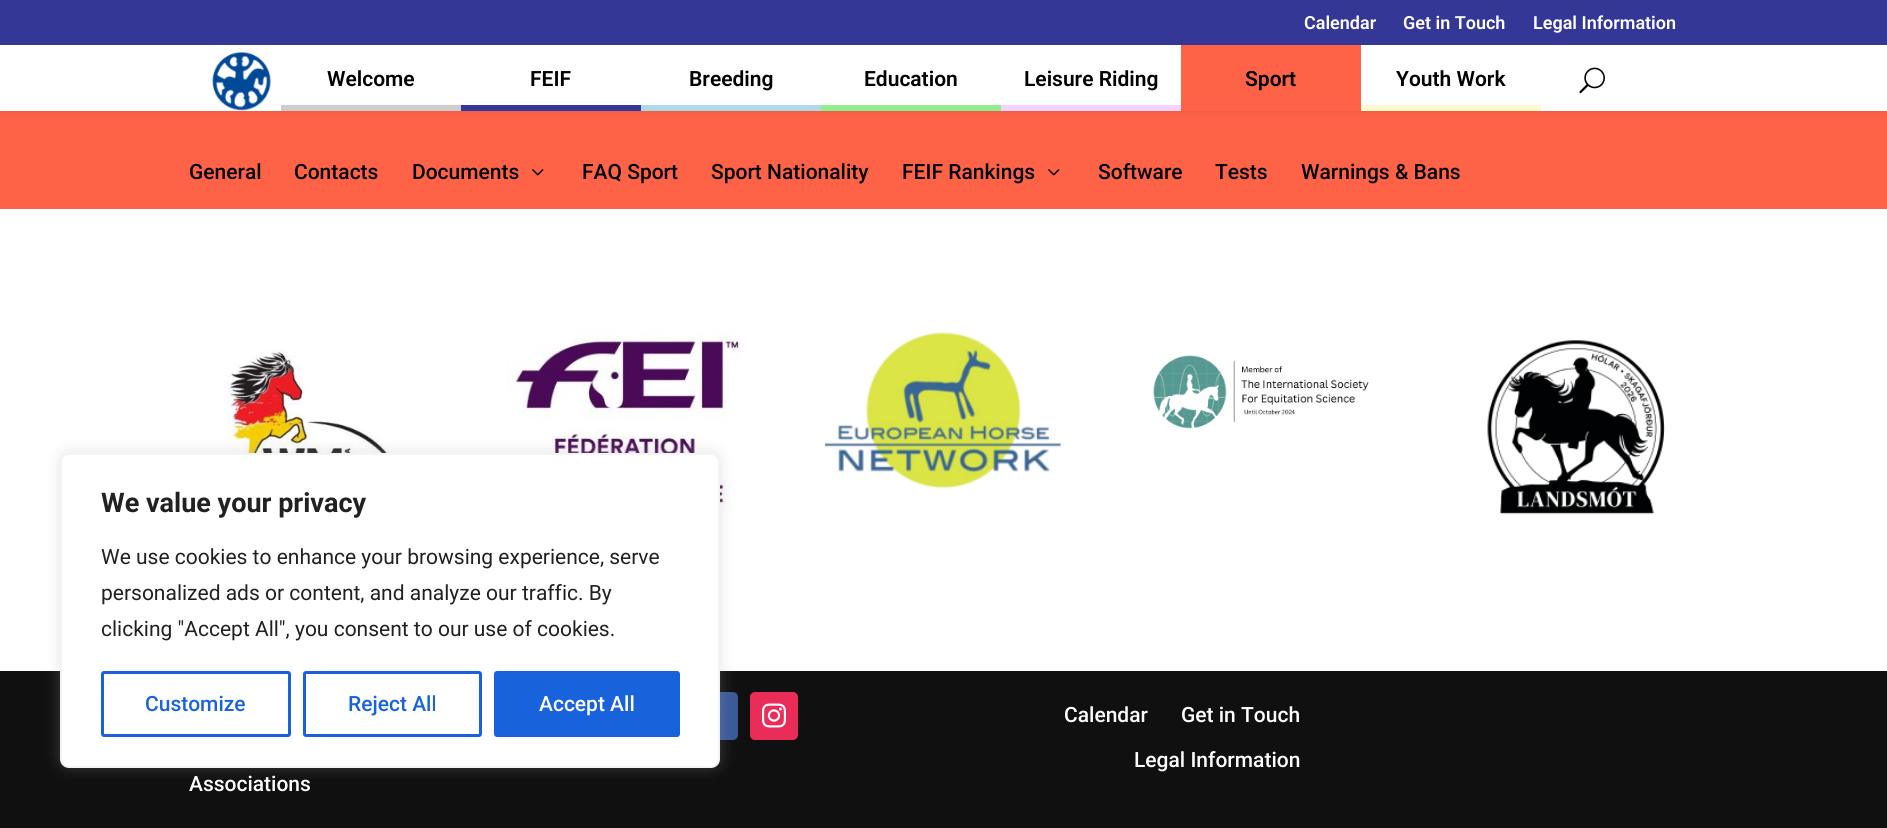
#include <cairo/cairo.h>
#include <math.h>
#include <stddef.h>


static void rounded_rect(cairo_t *cr, double x, double y, double w, double h, double r) {
  cairo_new_sub_path(cr);
  cairo_arc(cr, x + w - r, y + h - r, r, 0, M_PI / 2);
  cairo_arc(cr, x + r, y + h - r, r, M_PI / 2, M_PI);
  cairo_arc(cr, x + r, y + r, r, M_PI, 1.5 * M_PI);
  cairo_arc(cr, x + w - r, y + r, r, 1.5 * M_PI, 2 * M_PI);
  cairo_close_path(cr);
}

static void draw_shadow(cairo_t *cr, double x, double y, double w, double h, double r, double blur, double alpha) {
  cairo_push_group_with_content(cr, CAIRO_CONTENT_ALPHA);
  cairo_set_operator(cr, CAIRO_OPERATOR_SOURCE);
  for (int i = 15; i >= -15 && fmin(w, h) + blur * i / 3 > 0; i -= 2) {
    double e = blur * i / 6;
    cairo_set_source_rgba(cr, 0, 0, 0, alpha * erfc((i - 1) / 8.5) / 2);
    rounded_rect(cr, x - e, y - e, w + 2 * e, h + 2 * e, fmax(0, fmin(r + e + blur * .6, fmin(w, h) / 2 + e)));
    cairo_fill(cr);
  }
  cairo_pattern_t *soft = cairo_pop_group(cr);
  cairo_mask(cr, soft);
  cairo_pattern_destroy(soft);
}

static void draw_image(cairo_t *cr, const char *path, double x, double y, double w, double h) {
  cairo_surface_t *image = cairo_image_surface_create_from_png(path);
  cairo_save(cr);
  cairo_set_source_surface(cr, image, x, y);
  cairo_rectangle(cr, x, y, w, h);
  cairo_fill(cr);
  cairo_restore(cr);
  cairo_surface_destroy(image);
}

static void draw(cairo_t *cr) {
  cairo_set_source_rgb(cr, 1, 1, 1);
  cairo_paint(cr);
  cairo_set_source_rgb(cr, 1, 99 / 255.0, 71 / 255.0);
  cairo_rectangle(cr, 0, 111, 1887, 98);
  cairo_fill(cr);
  cairo_set_source_rgb(cr, 0, 0, 0);
  draw_shadow(cr, 0, 45, 1887, 66, 0, 5, 0.1);
  cairo_set_source_rgb(cr, 53 / 255.0, 55 / 255.0, 151 / 255.0);
  cairo_rectangle(cr, 0, 0, 1887, 45);
  cairo_fill(cr);
  cairo_set_source_rgb(cr, 1, 1, 1);
  cairo_rectangle(cr, 0, 45, 1887, 66);
  cairo_fill(cr);
  draw_image(cr, "images/1.png", 212, 52, 60, 59);
  cairo_set_source_rgb(cr, 205 / 255.0, 205 / 255.0, 205 / 255.0);
  cairo_rectangle(cr, 281, 105, 180, 6);
  cairo_fill(cr);
  cairo_set_source_rgb(cr, 53 / 255.0, 55 / 255.0, 151 / 255.0);
  cairo_rectangle(cr, 461, 105, 180, 6);
  cairo_fill(cr);
  cairo_set_source_rgb(cr, 173 / 255.0, 216 / 255.0, 230 / 255.0);
  cairo_rectangle(cr, 641, 105, 180, 6);
  cairo_fill(cr);
  cairo_set_source_rgb(cr, 144 / 255.0, 238 / 255.0, 144 / 255.0);
  cairo_rectangle(cr, 821, 105, 180, 6);
  cairo_fill(cr);
  cairo_set_source_rgb(cr, 243 / 255.0, 211 / 255.0, 1);
  cairo_rectangle(cr, 1001, 105, 180, 6);
  cairo_fill(cr);
  cairo_set_source_rgb(cr, 1, 99 / 255.0, 71 / 255.0);
  cairo_rectangle(cr, 1181, 45, 180, 66);
  cairo_fill(cr);
  cairo_set_source_rgb(cr, 1, 250 / 255.0, 205 / 255.0);
  cairo_rectangle(cr, 1361, 105, 180, 6);
  cairo_fill(cr);
  draw_image(cr, "images/2.png", 1579, 67, 26, 27);
  draw_image(cr, "images/3.png", 532, 169, 12, 7);
  draw_image(cr, "images/3.png", 1048, 169, 12, 7);
  draw_image(cr, "images/4.png", 220, 349, 184, 104);
  draw_image(cr, "images/5.png", 507, 330, 234, 181);
  draw_image(cr, "images/6.png", 825, 332, 236, 157);
  draw_image(cr, "images/7.png", 1153, 355, 216, 74);
  draw_image(cr, "images/8.png", 1487, 340, 178, 175);
  cairo_set_source_rgb(cr, 16 / 255.0, 16 / 255.0, 16 / 255.0);
  cairo_rectangle(cr, 0, 671, 1887, 157);
  cairo_fill(cr);
  cairo_set_source_rgb(cr, 59 / 255.0, 89 / 255.0, 152 / 255.0);
  rounded_rect(cr, 690, 692, 48, 48, 5);
  cairo_fill(cr);
  draw_image(cr, "images/9.png", 720, 704, 1, 8);
  cairo_set_source_rgb(cr, 234 / 255.0, 44 / 255.0, 89 / 255.0);
  rounded_rect(cr, 750, 692, 48, 48, 5);
  cairo_fill(cr);
  draw_image(cr, "images/10.png", 762, 703, 24, 25);
  cairo_set_source_rgb(cr, 172 / 255.0, 171 / 255.0, 171 / 255.0);
  draw_shadow(cr, 60, 452, 660, 315, 9, 7.5, 0.3);
  cairo_set_source_rgb(cr, 1, 1, 1);
  rounded_rect(cr, 61, 454, 658, 313, 8);
  cairo_fill_preserve(cr);
  cairo_set_source_rgb(cr, 244 / 255.0, 244 / 255.0, 244 / 255.0);
  cairo_stroke(cr);
  rounded_rect(cr, 102.5, 672.5, 187, 63, 1.5);
  cairo_set_source_rgb(cr, 24 / 255.0, 99 / 255.0, 220 / 255.0);
  cairo_set_line_width(cr, 3);
  cairo_stroke(cr);
  rounded_rect(cr, 304.5, 672.5, 176, 63, 1.5);
  cairo_stroke(cr);
  rounded_rect(cr, 495.5, 672.5, 183, 63, 1.5);
  cairo_fill_preserve(cr);
  cairo_stroke(cr);
  cairo_select_font_face(cr, "Roboto SemiBold", CAIRO_FONT_SLANT_NORMAL, CAIRO_FONT_WEIGHT_NORMAL);
  cairo_set_font_size(cr, 18);
  cairo_set_source_rgb(cr, 1, 1, 1);
  cairo_move_to(cr, 1304, 29);
  cairo_show_text(cr, "Calendar");
  cairo_move_to(cr, 1403, 29);
  cairo_show_text(cr, "Get in Touch");
  cairo_move_to(cr, 1533, 29);
  cairo_show_text(cr, "Legal Information");
  cairo_set_font_size(cr, 21);
  cairo_set_source_rgb(cr, 0, 0, 0);
  cairo_move_to(cr, 327, 86);
  cairo_show_text(cr, "Welcome");
  cairo_move_to(cr, 530, 86);
  cairo_show_text(cr, "FEIF");
  cairo_move_to(cr, 689, 86);
  cairo_show_text(cr, "Breeding");
  cairo_move_to(cr, 864, 86);
  cairo_show_text(cr, "Education");
  cairo_move_to(cr, 1024, 86);
  cairo_show_text(cr, "Leisure Riding");
  cairo_move_to(cr, 1245, 86);
  cairo_show_text(cr, "Sport");
  cairo_move_to(cr, 1396, 86);
  cairo_show_text(cr, "Youth Work");
  cairo_select_font_face(cr, "Roboto Medium", CAIRO_FONT_SLANT_NORMAL, CAIRO_FONT_WEIGHT_NORMAL);
  cairo_move_to(cr, 189, 179);
  cairo_show_text(cr, "General");
  cairo_move_to(cr, 294, 179);
  cairo_show_text(cr, "Contacts");
  cairo_move_to(cr, 412, 179);
  cairo_show_text(cr, "Documents");
  cairo_move_to(cr, 582, 179);
  cairo_show_text(cr, "FAQ Sport");
  cairo_move_to(cr, 711, 179);
  cairo_show_text(cr, "Sport Nationality");
  cairo_move_to(cr, 902, 179);
  cairo_show_text(cr, "FEIF Rankings");
  cairo_move_to(cr, 1098, 179);
  cairo_show_text(cr, "Software");
  cairo_move_to(cr, 1215, 179);
  cairo_show_text(cr, "Tests");
  cairo_move_to(cr, 1301, 179);
  cairo_show_text(cr, "Warnings & Bans");
  cairo_set_source_rgb(cr, 1, 1, 1);
  cairo_move_to(cr, 1064, 722);
  cairo_show_text(cr, "Calendar");
  cairo_move_to(cr, 1181, 722);
  cairo_show_text(cr, "Get in Touch");
  cairo_move_to(cr, 1134, 767);
  cairo_show_text(cr, "Legal Information");
  cairo_move_to(cr, 189, 791);
  cairo_show_text(cr, "Associations");
  cairo_select_font_face(cr, "Roboto", CAIRO_FONT_SLANT_NORMAL, CAIRO_FONT_WEIGHT_BOLD);
  cairo_set_font_size(cr, 27);
  cairo_set_source_rgb(cr, 33 / 255.0, 33 / 255.0, 33 / 255.0);
  cairo_move_to(cr, 101, 512);
  cairo_show_text(cr, "We value your privacy");
  cairo_select_font_face(cr, "Roboto", CAIRO_FONT_SLANT_NORMAL, CAIRO_FONT_WEIGHT_NORMAL);
  cairo_set_font_size(cr, 21);
  cairo_move_to(cr, 101, 564);
  cairo_show_text(cr, "We use cookies to enhance your browsing experience, serve");
  cairo_move_to(cr, 101, 600);
  cairo_show_text(cr, "personalized ads or content, and analyze our traffic. By");
  cairo_move_to(cr, 101, 636);
  cairo_show_text(cr, "clicking \"Accept All\", you consent to our use of cookies.");
  cairo_select_font_face(cr, "Roboto Medium", CAIRO_FONT_SLANT_NORMAL, CAIRO_FONT_WEIGHT_NORMAL);
  cairo_set_source_rgb(cr, 24 / 255.0, 99 / 255.0, 220 / 255.0);
  cairo_move_to(cr, 145, 711);
  cairo_show_text(cr, "Customize");
  cairo_move_to(cr, 348, 711);
  cairo_show_text(cr, "Reject All");
  cairo_set_source_rgb(cr, 1, 1, 1);
  cairo_move_to(cr, 539, 711);
  cairo_show_text(cr, "Accept All");
}

int main(void) {
  cairo_surface_t *surface = cairo_image_surface_create(CAIRO_FORMAT_RGB24, 1887, 828);
  cairo_t *cr = cairo_create(surface);
  cairo_font_options_t *options = cairo_font_options_create();
  cairo_font_options_set_hint_metrics(options, CAIRO_HINT_METRICS_OFF);
  cairo_font_options_set_hint_style(options, CAIRO_HINT_STYLE_NONE);
  cairo_set_font_options(cr, options);
  cairo_set_miter_limit(cr, 4);
  draw(cr);
  cairo_surface_write_to_png(surface, "out.png");
  cairo_font_options_destroy(options);
  cairo_destroy(cr);
  cairo_surface_destroy(surface);
  return 0;
}
